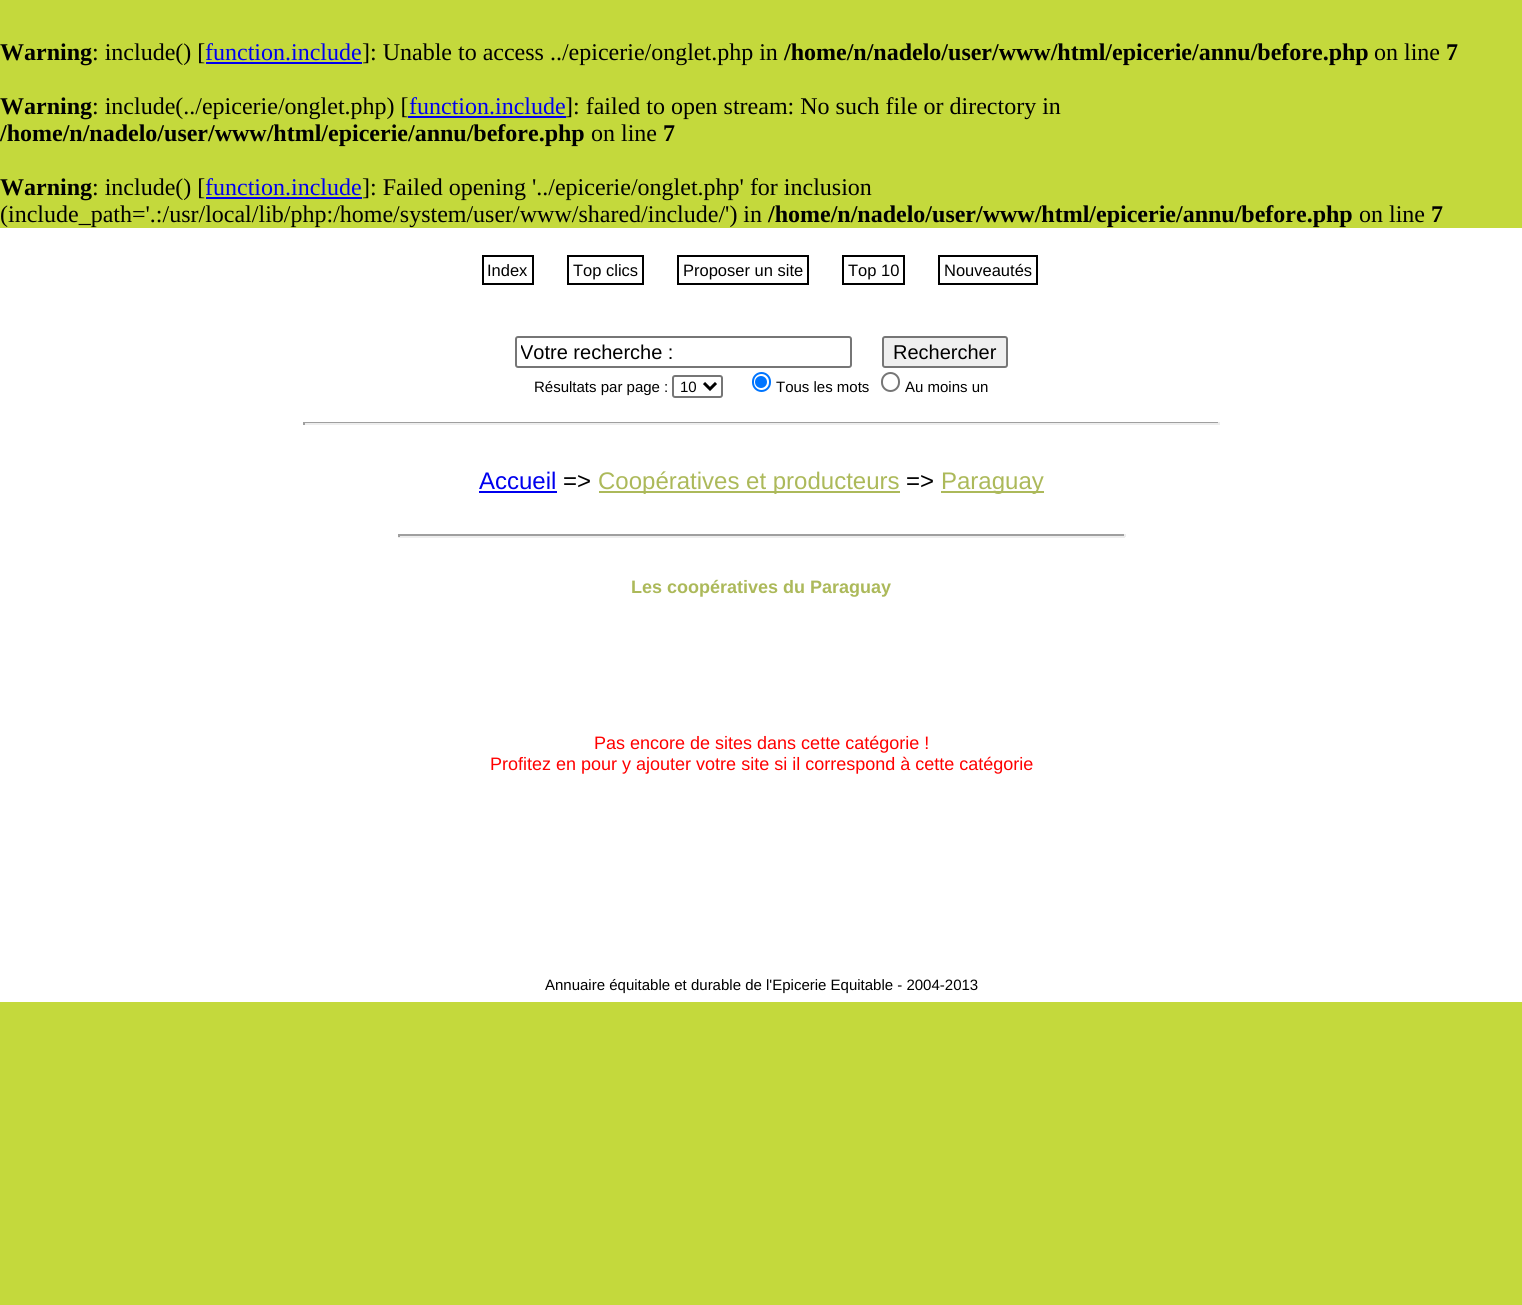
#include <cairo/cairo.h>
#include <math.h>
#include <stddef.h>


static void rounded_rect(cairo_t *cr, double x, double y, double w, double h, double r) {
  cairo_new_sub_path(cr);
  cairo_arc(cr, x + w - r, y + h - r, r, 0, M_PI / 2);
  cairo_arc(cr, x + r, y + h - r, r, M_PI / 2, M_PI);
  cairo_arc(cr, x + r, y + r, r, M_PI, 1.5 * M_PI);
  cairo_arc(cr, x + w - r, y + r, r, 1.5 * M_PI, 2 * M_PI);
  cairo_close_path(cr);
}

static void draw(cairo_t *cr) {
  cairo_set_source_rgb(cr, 196 / 255.0, 217 / 255.0, 60 / 255.0);
  cairo_paint(cr);
  cairo_set_source_rgb(cr, 0, 0, 238 / 255.0);
  cairo_rectangle(cr, 206, 62, 156, 2);
  cairo_fill(cr);
  cairo_rectangle(cr, 408, 116, 158, 2);
  cairo_fill(cr);
  cairo_rectangle(cr, 206, 197, 156, 2);
  cairo_fill(cr);
  cairo_set_source_rgb(cr, 1, 1, 1);
  cairo_rectangle(cr, 0, 228, 1522, 774);
  cairo_fill(cr);
  cairo_rectangle(cr, 483, 256, 50, 28);
  cairo_set_source_rgb(cr, 0, 0, 0);
  cairo_stroke(cr);
  cairo_rectangle(cr, 568, 256, 75, 28);
  cairo_stroke(cr);
  cairo_rectangle(cr, 678, 256, 130, 28);
  cairo_stroke(cr);
  cairo_rectangle(cr, 843, 256, 61, 28);
  cairo_stroke(cr);
  cairo_rectangle(cr, 939, 256, 98, 28);
  cairo_stroke(cr);
  rounded_rect(cr, 516, 337, 335, 30, 2);
  cairo_set_source_rgb(cr, 118 / 255.0, 118 / 255.0, 118 / 255.0);
  cairo_stroke(cr);
  cairo_set_source_rgb(cr, 239 / 255.0, 239 / 255.0, 239 / 255.0);
  rounded_rect(cr, 883, 337, 124, 30, 2);
  cairo_fill_preserve(cr);
  cairo_set_source_rgb(cr, 118 / 255.0, 118 / 255.0, 118 / 255.0);
  cairo_stroke(cr);
  rounded_rect(cr, 673, 376, 49, 21, 2);
  cairo_stroke(cr);
  cairo_new_path(cr);
  cairo_move_to(cr, 704, 383);
  cairo_line_to(cr, 710, 389);
  cairo_line_to(cr, 716, 383);
  cairo_set_source_rgb(cr, 0, 0, 0);
  cairo_set_line_width(cr, 3);
  cairo_stroke(cr);
  rounded_rect(cr, 753, 373, 17, 18, 8.5);
  cairo_set_source_rgb(cr, 0, 117 / 255.0, 1);
  cairo_set_line_width(cr, 2);
  cairo_stroke(cr);
  cairo_arc(cr, 761, 382, 6, 0, 2 * M_PI);
  cairo_fill(cr);
  rounded_rect(cr, 882, 373, 17, 18, 8.5);
  cairo_set_source_rgb(cr, 118 / 255.0, 118 / 255.0, 118 / 255.0);
  cairo_stroke(cr);
  cairo_set_source_rgb(cr, 159 / 255.0, 159 / 255.0, 159 / 255.0);
  cairo_rectangle(cr, 303, 422, 917, 1);
  cairo_fill(cr);
  cairo_set_source_rgb(cr, 238 / 255.0, 238 / 255.0, 238 / 255.0);
  cairo_rectangle(cr, 1218, 422, 2, 3);
  cairo_fill(cr);
  cairo_rectangle(cr, 303, 423, 917, 2);
  cairo_fill(cr);
  cairo_set_source_rgb(cr, 159 / 255.0, 159 / 255.0, 159 / 255.0);
  cairo_rectangle(cr, 303, 422, 2, 3);
  cairo_fill(cr);
  cairo_set_source_rgb(cr, 0, 0, 238 / 255.0);
  cairo_rectangle(cr, 479, 491, 78, 2);
  cairo_fill(cr);
  cairo_set_source_rgb(cr, 172 / 255.0, 185 / 255.0, 90 / 255.0);
  cairo_rectangle(cr, 599, 491, 301, 2);
  cairo_fill(cr);
  cairo_rectangle(cr, 941, 491, 103, 2);
  cairo_fill(cr);
  cairo_set_source_rgb(cr, 159 / 255.0, 159 / 255.0, 159 / 255.0);
  cairo_rectangle(cr, 398, 534, 727, 2);
  cairo_fill(cr);
  cairo_set_source_rgb(cr, 238 / 255.0, 238 / 255.0, 238 / 255.0);
  cairo_rectangle(cr, 1124, 534, 2, 3);
  cairo_fill(cr);
  cairo_rectangle(cr, 398, 536, 727, 2);
  cairo_fill(cr);
  cairo_set_source_rgb(cr, 159 / 255.0, 159 / 255.0, 159 / 255.0);
  cairo_rectangle(cr, 398, 534, 2, 3);
  cairo_fill(cr);
  cairo_select_font_face(cr, "Liberation Serif", CAIRO_FONT_SLANT_NORMAL, CAIRO_FONT_WEIGHT_BOLD);
  cairo_set_font_size(cr, 24);
  cairo_set_source_rgb(cr, 0, 0, 0);
  cairo_move_to(cr, 0, 60);
  cairo_show_text(cr, "Warning");
  cairo_select_font_face(cr, "Liberation Serif", CAIRO_FONT_SLANT_NORMAL, CAIRO_FONT_WEIGHT_NORMAL);
  cairo_move_to(cr, 92, 60);
  cairo_show_text(cr, ": include() [");
  cairo_set_source_rgb(cr, 0, 0, 238 / 255.0);
  cairo_move_to(cr, 205, 60);
  cairo_show_text(cr, "function.include");
  cairo_set_source_rgb(cr, 0, 0, 0);
  cairo_move_to(cr, 362, 60);
  cairo_show_text(cr, "]: Unable to access ../epicerie/onglet.php in");
  cairo_select_font_face(cr, "Liberation Serif", CAIRO_FONT_SLANT_NORMAL, CAIRO_FONT_WEIGHT_BOLD);
  cairo_move_to(cr, 784, 60);
  cairo_show_text(cr, "/home/n/nadelo/user/www/html/epicerie/annu/before.php");
  cairo_select_font_face(cr, "Liberation Serif", CAIRO_FONT_SLANT_NORMAL, CAIRO_FONT_WEIGHT_NORMAL);
  cairo_move_to(cr, 1374, 60);
  cairo_show_text(cr, "on line");
  cairo_select_font_face(cr, "Liberation Serif", CAIRO_FONT_SLANT_NORMAL, CAIRO_FONT_WEIGHT_BOLD);
  cairo_move_to(cr, 1446, 60);
  cairo_show_text(cr, "7");
  cairo_move_to(cr, 0, 114);
  cairo_show_text(cr, "Warning");
  cairo_select_font_face(cr, "Liberation Serif", CAIRO_FONT_SLANT_NORMAL, CAIRO_FONT_WEIGHT_NORMAL);
  cairo_move_to(cr, 92, 114);
  cairo_show_text(cr, ": include(../epicerie/onglet.php) [");
  cairo_set_source_rgb(cr, 0, 0, 238 / 255.0);
  cairo_move_to(cr, 409, 114);
  cairo_show_text(cr, "function.include");
  cairo_set_source_rgb(cr, 0, 0, 0);
  cairo_move_to(cr, 565, 114);
  cairo_show_text(cr, "]: failed to open stream: No such file or directory in");
  cairo_select_font_face(cr, "Liberation Serif", CAIRO_FONT_SLANT_NORMAL, CAIRO_FONT_WEIGHT_BOLD);
  cairo_move_to(cr, 0, 141);
  cairo_show_text(cr, "/home/n/nadelo/user/www/html/epicerie/annu/before.php");
  cairo_select_font_face(cr, "Liberation Serif", CAIRO_FONT_SLANT_NORMAL, CAIRO_FONT_WEIGHT_NORMAL);
  cairo_move_to(cr, 591, 141);
  cairo_show_text(cr, "on line");
  cairo_select_font_face(cr, "Liberation Serif", CAIRO_FONT_SLANT_NORMAL, CAIRO_FONT_WEIGHT_BOLD);
  cairo_move_to(cr, 663, 141);
  cairo_show_text(cr, "7");
  cairo_move_to(cr, 0, 195);
  cairo_show_text(cr, "Warning");
  cairo_select_font_face(cr, "Liberation Serif", CAIRO_FONT_SLANT_NORMAL, CAIRO_FONT_WEIGHT_NORMAL);
  cairo_move_to(cr, 92, 195);
  cairo_show_text(cr, ": include() [");
  cairo_set_source_rgb(cr, 0, 0, 238 / 255.0);
  cairo_move_to(cr, 205, 195);
  cairo_show_text(cr, "function.include");
  cairo_set_source_rgb(cr, 0, 0, 0);
  cairo_move_to(cr, 362, 195);
  cairo_show_text(cr, "]: Failed opening '../epicerie/onglet.php' for inclusion");
  cairo_move_to(cr, 0, 222);
  cairo_show_text(cr, "(include_path='.:/usr/local/lib/php:/home/system/user/www/shared/include/') in");
  cairo_select_font_face(cr, "Liberation Serif", CAIRO_FONT_SLANT_NORMAL, CAIRO_FONT_WEIGHT_BOLD);
  cairo_move_to(cr, 768, 222);
  cairo_show_text(cr, "/home/n/nadelo/user/www/html/epicerie/annu/before.php");
  cairo_select_font_face(cr, "Liberation Serif", CAIRO_FONT_SLANT_NORMAL, CAIRO_FONT_WEIGHT_NORMAL);
  cairo_move_to(cr, 1359, 222);
  cairo_show_text(cr, "on line");
  cairo_select_font_face(cr, "Liberation Serif", CAIRO_FONT_SLANT_NORMAL, CAIRO_FONT_WEIGHT_BOLD);
  cairo_move_to(cr, 1431, 222);
  cairo_show_text(cr, "7");
  cairo_select_font_face(cr, "Liberation Sans", CAIRO_FONT_SLANT_NORMAL, CAIRO_FONT_WEIGHT_NORMAL);
  cairo_set_font_size(cr, 16.5);
  cairo_move_to(cr, 487, 276);
  cairo_show_text(cr, "Index");
  cairo_move_to(cr, 573, 276);
  cairo_show_text(cr, "Top clics");
  cairo_move_to(cr, 683, 276);
  cairo_show_text(cr, "Proposer un site");
  cairo_move_to(cr, 848, 276);
  cairo_show_text(cr, "Top 10");
  cairo_move_to(cr, 944, 276);
  cairo_show_text(cr, "Nouveautés");
  cairo_save(cr);
  cairo_rectangle(cr, 521, 341, 325, 22);
  cairo_clip(cr);
  cairo_set_font_size(cr, 20);
  cairo_move_to(cr, 520, 359);
  cairo_show_text(cr, "Votre recherche :");
  cairo_restore(cr);
  cairo_set_font_size(cr, 20);
  cairo_move_to(cr, 893, 359);
  cairo_show_text(cr, "Rechercher");
  cairo_set_font_size(cr, 15);
  cairo_move_to(cr, 534, 392);
  cairo_show_text(cr, "Résultats par page :");
  cairo_move_to(cr, 680, 392);
  cairo_show_text(cr, "10");
  cairo_move_to(cr, 776, 392);
  cairo_show_text(cr, "Tous les mots");
  cairo_move_to(cr, 905, 392);
  cairo_show_text(cr, "Au moins un");
  cairo_set_font_size(cr, 24);
  cairo_set_source_rgb(cr, 0, 0, 238 / 255.0);
  cairo_move_to(cr, 479, 489);
  cairo_show_text(cr, "Accueil");
  cairo_set_source_rgb(cr, 0, 0, 0);
  cairo_move_to(cr, 563, 489);
  cairo_show_text(cr, "=>");
  cairo_set_source_rgb(cr, 172 / 255.0, 185 / 255.0, 90 / 255.0);
  cairo_move_to(cr, 598, 489);
  cairo_show_text(cr, "Coopératives et producteurs");
  cairo_set_source_rgb(cr, 0, 0, 0);
  cairo_move_to(cr, 906, 489);
  cairo_show_text(cr, "=>");
  cairo_set_source_rgb(cr, 172 / 255.0, 185 / 255.0, 90 / 255.0);
  cairo_move_to(cr, 941, 489);
  cairo_show_text(cr, "Paraguay");
  cairo_select_font_face(cr, "Liberation Sans", CAIRO_FONT_SLANT_NORMAL, CAIRO_FONT_WEIGHT_BOLD);
  cairo_set_font_size(cr, 18);
  cairo_move_to(cr, 631, 593);
  cairo_show_text(cr, "Les coopératives du Paraguay");
  cairo_select_font_face(cr, "Liberation Sans", CAIRO_FONT_SLANT_NORMAL, CAIRO_FONT_WEIGHT_NORMAL);
  cairo_set_source_rgb(cr, 1, 0, 0);
  cairo_move_to(cr, 594, 749);
  cairo_show_text(cr, "Pas encore de sites dans cette catégorie !");
  cairo_move_to(cr, 490, 770);
  cairo_show_text(cr, "Profitez en pour y ajouter votre site si il correspond à cette catégorie");
  cairo_set_font_size(cr, 15);
  cairo_set_source_rgb(cr, 0, 0, 0);
  cairo_move_to(cr, 545, 990);
  cairo_show_text(cr, "Annuaire équitable et durable de l'Epicerie Equitable - 2004-2013");
}

int main(void) {
  cairo_surface_t *surface = cairo_image_surface_create(CAIRO_FORMAT_RGB24, 1522, 1305);
  cairo_t *cr = cairo_create(surface);
  cairo_font_options_t *options = cairo_font_options_create();
  cairo_font_options_set_hint_metrics(options, CAIRO_HINT_METRICS_OFF);
  cairo_font_options_set_hint_style(options, CAIRO_HINT_STYLE_NONE);
  cairo_set_font_options(cr, options);
  cairo_set_miter_limit(cr, 4);
  draw(cr);
  cairo_surface_write_to_png(surface, "out.png");
  cairo_font_options_destroy(options);
  cairo_destroy(cr);
  cairo_surface_destroy(surface);
  return 0;
}
